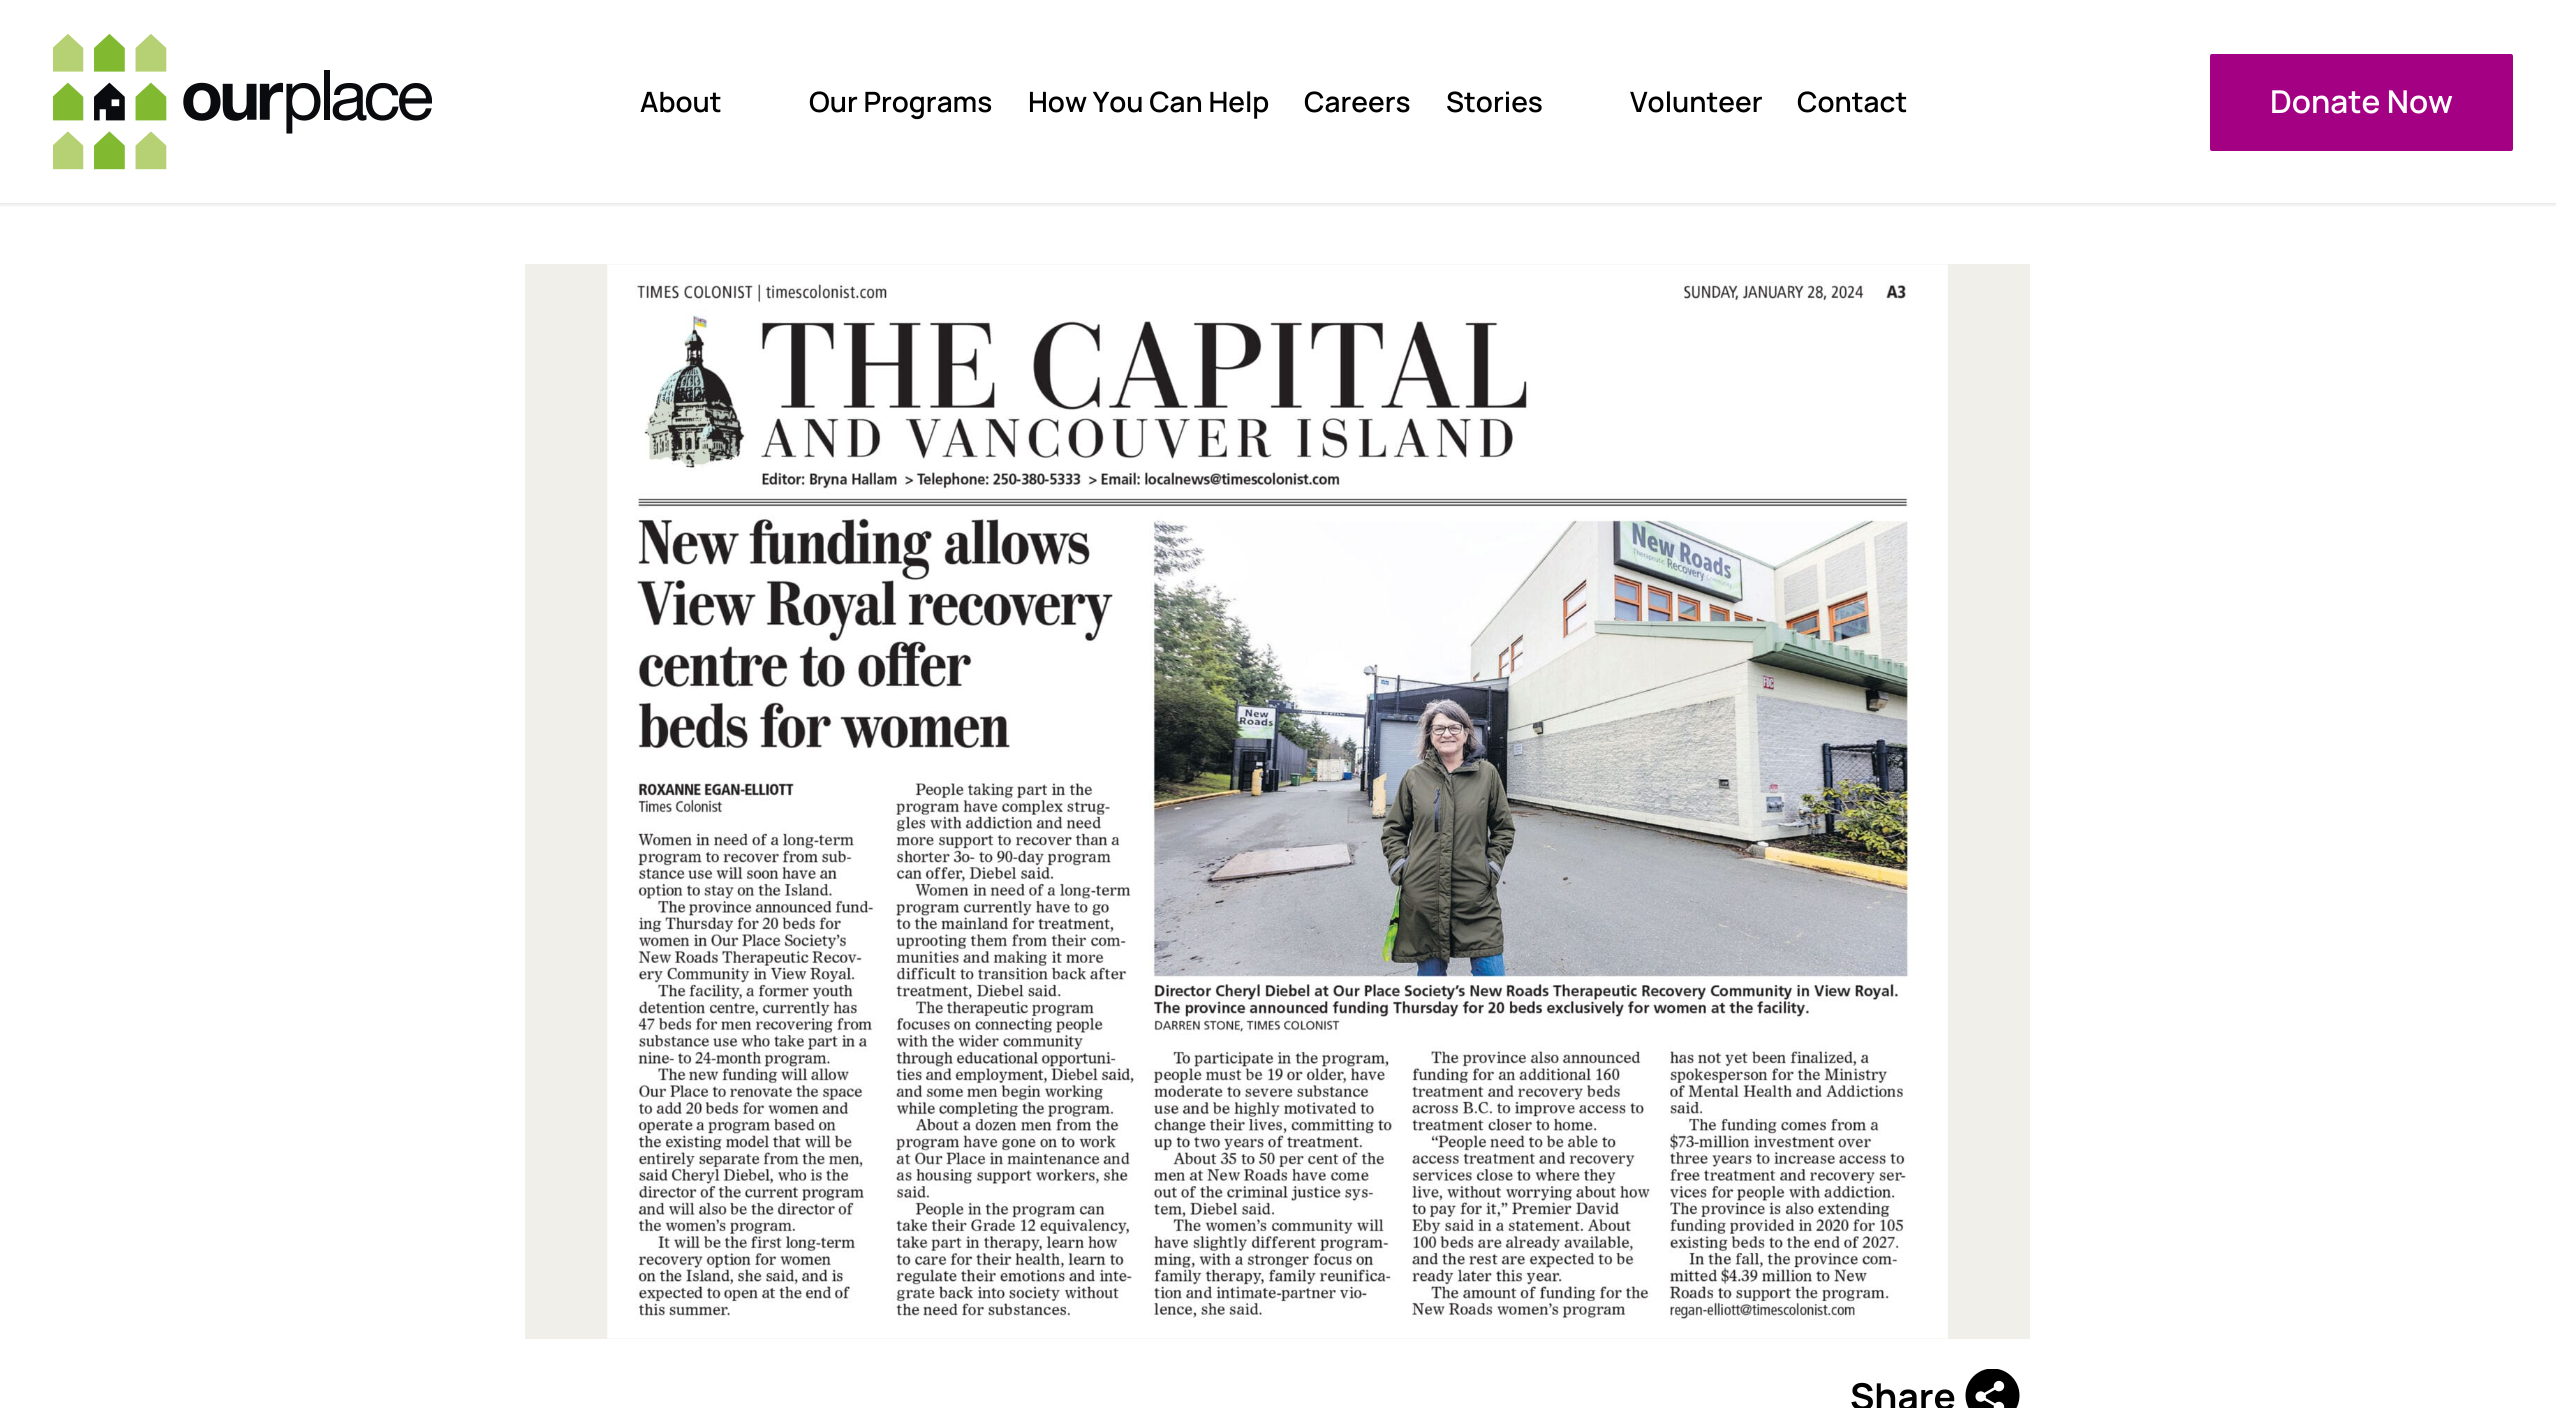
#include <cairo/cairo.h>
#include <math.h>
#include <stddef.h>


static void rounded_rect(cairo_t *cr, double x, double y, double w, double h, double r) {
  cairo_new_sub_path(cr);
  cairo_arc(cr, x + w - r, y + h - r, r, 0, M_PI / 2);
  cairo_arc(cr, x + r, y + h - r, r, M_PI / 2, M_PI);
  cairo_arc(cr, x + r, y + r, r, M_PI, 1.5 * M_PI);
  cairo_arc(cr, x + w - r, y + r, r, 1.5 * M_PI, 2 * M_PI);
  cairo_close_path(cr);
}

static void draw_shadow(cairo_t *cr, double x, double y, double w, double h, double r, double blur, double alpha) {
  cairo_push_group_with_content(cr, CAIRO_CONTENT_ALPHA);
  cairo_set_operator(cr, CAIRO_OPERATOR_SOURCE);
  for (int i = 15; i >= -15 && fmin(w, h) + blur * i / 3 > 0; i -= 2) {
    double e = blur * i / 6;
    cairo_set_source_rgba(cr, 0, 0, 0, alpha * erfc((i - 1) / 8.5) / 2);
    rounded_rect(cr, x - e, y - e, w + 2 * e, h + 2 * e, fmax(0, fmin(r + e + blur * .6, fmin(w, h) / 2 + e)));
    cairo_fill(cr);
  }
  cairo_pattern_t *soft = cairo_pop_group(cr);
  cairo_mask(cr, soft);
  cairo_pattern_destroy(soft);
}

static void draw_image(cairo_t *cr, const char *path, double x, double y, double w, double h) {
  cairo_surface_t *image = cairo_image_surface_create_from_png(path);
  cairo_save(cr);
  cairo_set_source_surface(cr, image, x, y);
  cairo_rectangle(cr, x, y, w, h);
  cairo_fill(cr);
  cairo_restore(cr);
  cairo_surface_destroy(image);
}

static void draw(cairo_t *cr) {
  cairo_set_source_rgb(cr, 1, 1, 1);
  cairo_paint(cr);
  cairo_save(cr);
  cairo_rectangle(cr, 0, 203, 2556, 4);
  cairo_clip(cr);
  cairo_set_source_rgb(cr, 0, 0, 0);
  draw_shadow(cr, -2, -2, 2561, 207, 0, 2, 0.1);
  cairo_restore(cr);
  draw_image(cr, "images/1.png", 53, 33, 379, 137);
  cairo_set_source_rgb(cr, 164 / 255.0, 0, 132 / 255.0);
  rounded_rect(cr, 2210, 54, 303, 97, 2);
  cairo_fill(cr);
  cairo_set_source_rgb(cr, 240 / 255.0, 239 / 255.0, 234 / 255.0);
  cairo_rectangle(cr, 525, 264, 1505, 1075);
  cairo_fill(cr);
  draw_image(cr, "images/2.png", 607, 264, 1341, 1075);
  draw_image(cr, "images/3.png", 1965, 1369, 55, 39);
  cairo_select_font_face(cr, "Manrope SemiBold", CAIRO_FONT_SLANT_NORMAL, CAIRO_FONT_WEIGHT_NORMAL);
  cairo_set_font_size(cr, 28);
  cairo_set_source_rgb(cr, 0, 0, 0);
  cairo_move_to(cr, 640, 112);
  cairo_show_text(cr, "About");
  cairo_move_to(cr, 809, 112);
  cairo_show_text(cr, "Our Programs");
  cairo_move_to(cr, 1028, 112);
  cairo_show_text(cr, "How You Can Help");
  cairo_move_to(cr, 1304, 112);
  cairo_show_text(cr, "Careers");
  cairo_move_to(cr, 1446, 112);
  cairo_show_text(cr, "Stories");
  cairo_move_to(cr, 1630, 112);
  cairo_show_text(cr, "Volunteer");
  cairo_move_to(cr, 1797, 112);
  cairo_show_text(cr, "Contact");
  cairo_set_font_size(cr, 31.5);
  cairo_set_source_rgb(cr, 1, 1, 1);
  cairo_move_to(cr, 2270, 113);
  cairo_show_text(cr, "Donate Now");
  cairo_select_font_face(cr, "Manrope", CAIRO_FONT_SLANT_NORMAL, CAIRO_FONT_WEIGHT_BOLD);
  cairo_set_font_size(cr, 37);
  cairo_set_source_rgb(cr, 0, 0, 0);
  cairo_move_to(cr, 1850, 1410);
  cairo_show_text(cr, "Share");
}

int main(void) {
  cairo_surface_t *surface = cairo_image_surface_create(CAIRO_FORMAT_RGB24, 2556, 1408);
  cairo_t *cr = cairo_create(surface);
  cairo_font_options_t *options = cairo_font_options_create();
  cairo_font_options_set_hint_metrics(options, CAIRO_HINT_METRICS_OFF);
  cairo_font_options_set_hint_style(options, CAIRO_HINT_STYLE_NONE);
  cairo_set_font_options(cr, options);
  cairo_set_miter_limit(cr, 4);
  draw(cr);
  cairo_surface_write_to_png(surface, "out.png");
  cairo_font_options_destroy(options);
  cairo_destroy(cr);
  cairo_surface_destroy(surface);
  return 0;
}
